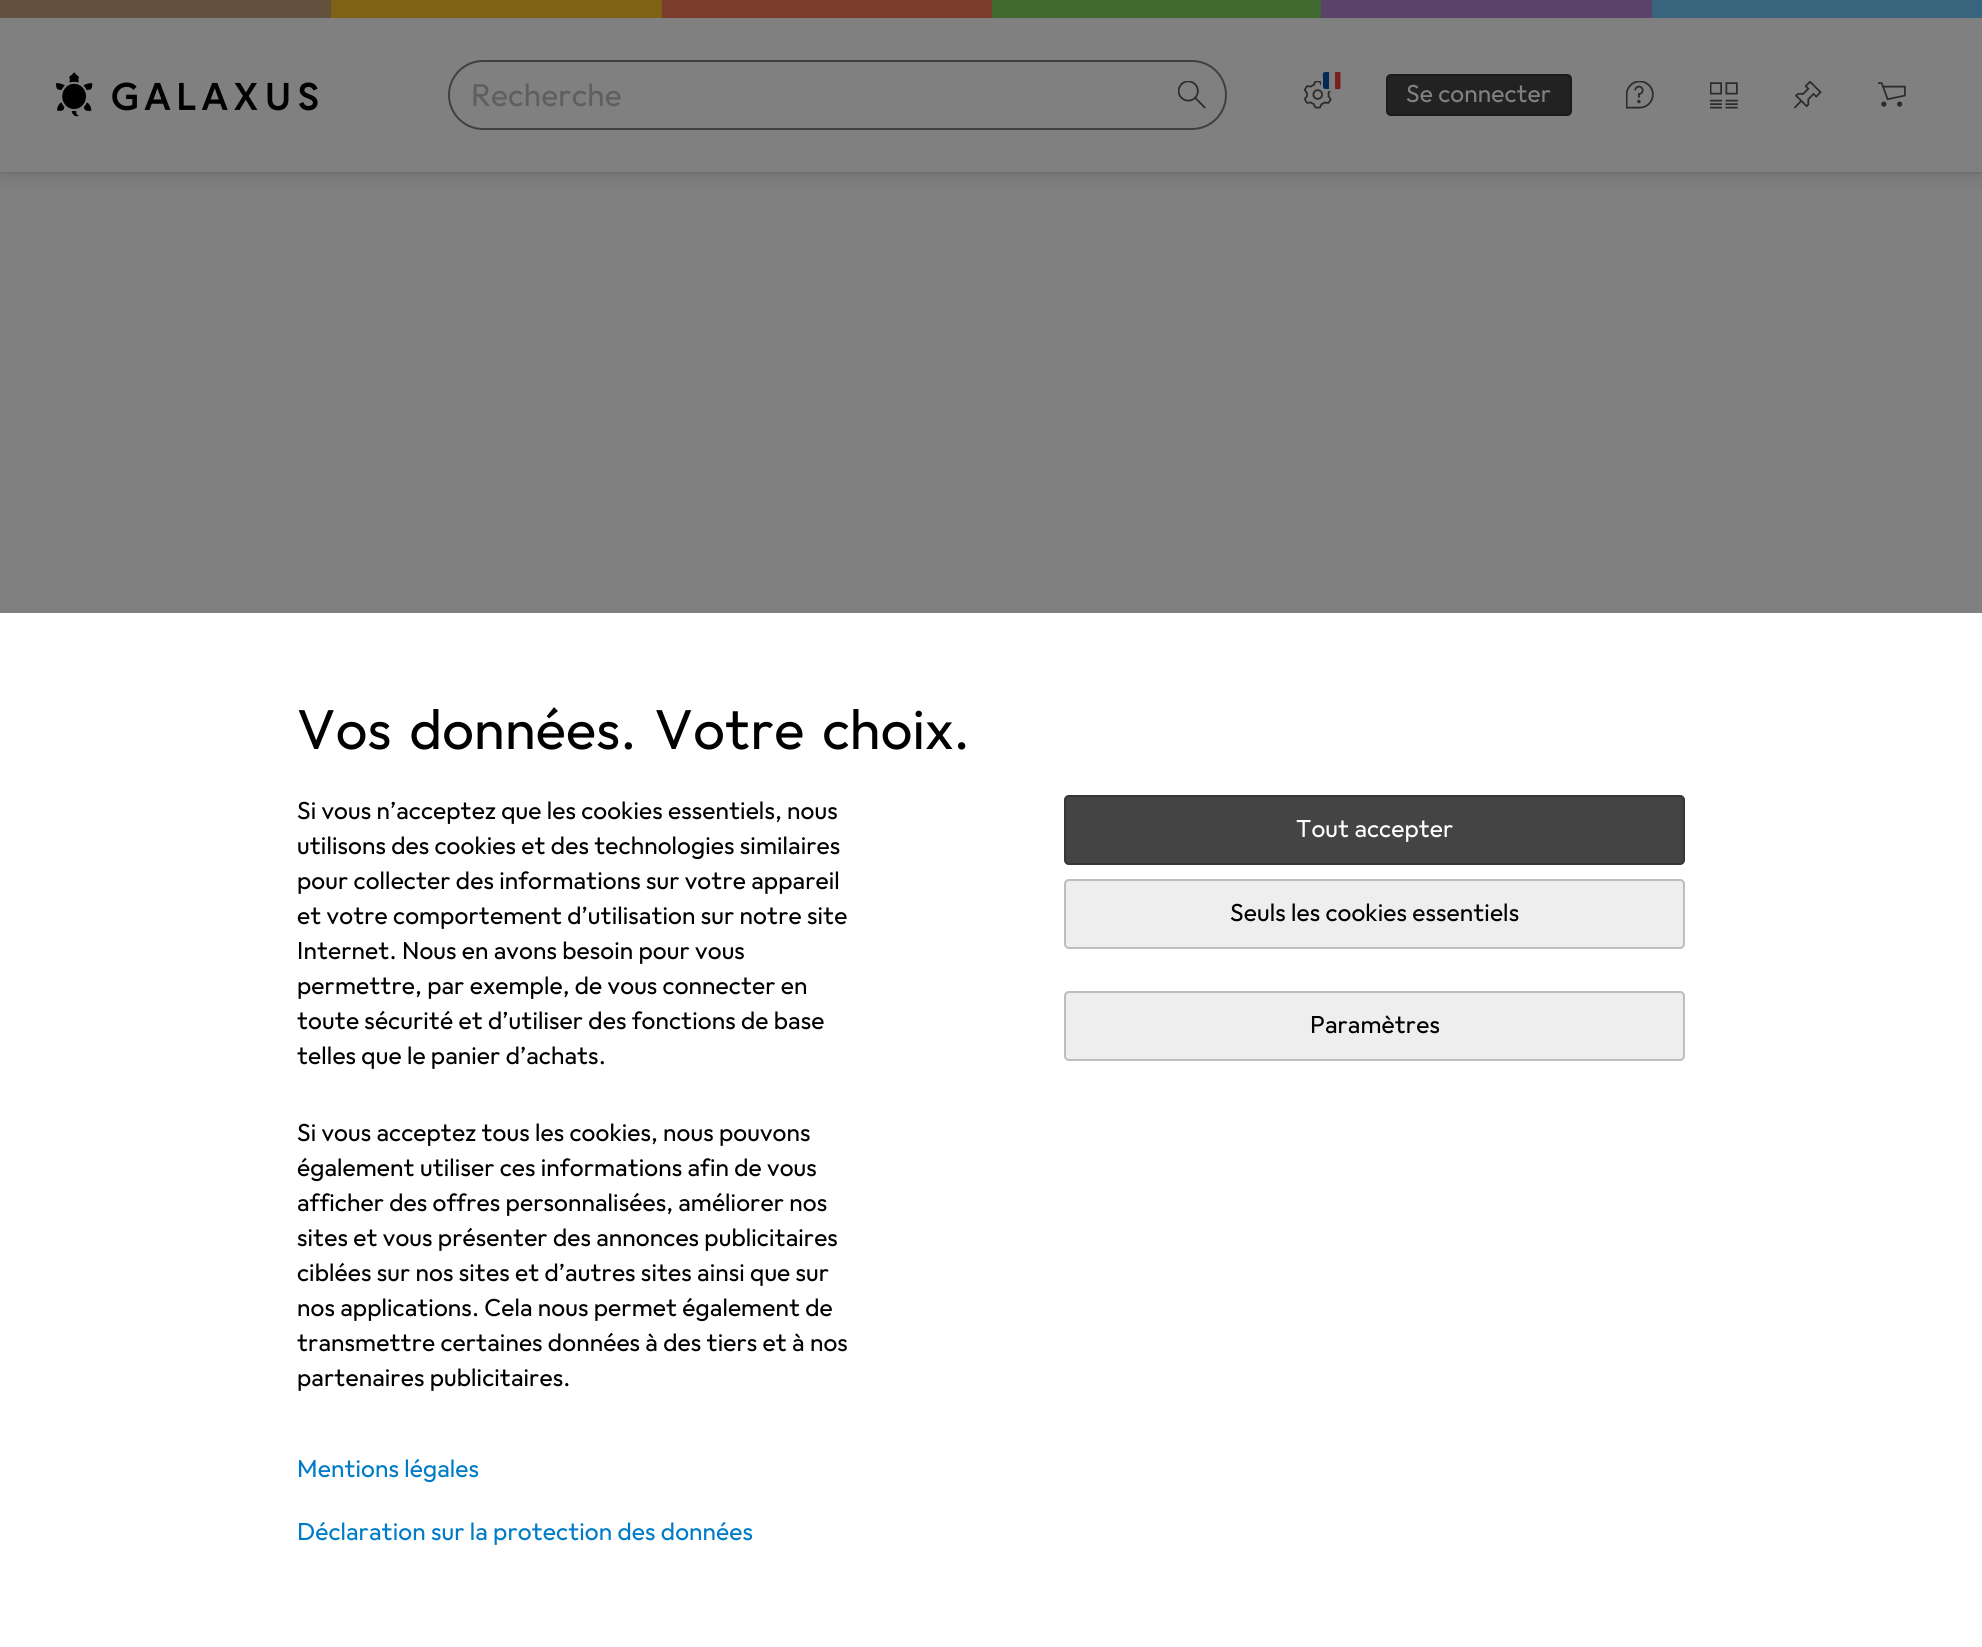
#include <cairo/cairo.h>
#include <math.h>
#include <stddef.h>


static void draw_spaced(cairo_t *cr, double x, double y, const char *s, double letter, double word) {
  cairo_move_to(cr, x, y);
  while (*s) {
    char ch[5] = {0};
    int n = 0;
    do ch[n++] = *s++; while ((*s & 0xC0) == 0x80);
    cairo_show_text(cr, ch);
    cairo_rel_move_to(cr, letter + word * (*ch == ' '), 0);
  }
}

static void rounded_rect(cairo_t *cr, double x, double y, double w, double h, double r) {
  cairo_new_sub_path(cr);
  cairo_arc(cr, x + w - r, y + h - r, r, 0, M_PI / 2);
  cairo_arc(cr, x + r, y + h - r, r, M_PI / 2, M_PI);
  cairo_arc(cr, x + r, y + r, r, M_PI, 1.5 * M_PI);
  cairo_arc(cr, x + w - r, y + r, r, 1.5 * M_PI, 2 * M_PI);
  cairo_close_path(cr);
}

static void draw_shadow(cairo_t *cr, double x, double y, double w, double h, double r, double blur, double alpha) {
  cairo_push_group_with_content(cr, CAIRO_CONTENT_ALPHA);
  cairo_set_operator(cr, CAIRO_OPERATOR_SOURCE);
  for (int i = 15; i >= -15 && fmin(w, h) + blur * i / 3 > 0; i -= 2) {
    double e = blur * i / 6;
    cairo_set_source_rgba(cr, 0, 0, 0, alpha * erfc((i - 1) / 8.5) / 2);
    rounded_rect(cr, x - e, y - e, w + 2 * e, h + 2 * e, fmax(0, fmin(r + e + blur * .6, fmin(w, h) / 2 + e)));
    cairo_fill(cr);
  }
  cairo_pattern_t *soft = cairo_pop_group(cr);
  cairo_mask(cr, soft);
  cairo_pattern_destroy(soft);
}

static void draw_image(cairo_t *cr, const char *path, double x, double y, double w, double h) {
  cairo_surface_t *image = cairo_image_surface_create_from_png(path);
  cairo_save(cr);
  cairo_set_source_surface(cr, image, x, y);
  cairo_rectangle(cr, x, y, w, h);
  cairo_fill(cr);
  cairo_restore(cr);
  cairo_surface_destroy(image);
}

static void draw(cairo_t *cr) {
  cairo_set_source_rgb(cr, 128 / 255.0, 128 / 255.0, 128 / 255.0);
  cairo_paint(cr);
  cairo_set_source_rgb(cr, 0, 0, 0);
  draw_shadow(cr, 0, 7, 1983, 172, 0, 7, 0.08);
  draw_shadow(cr, 0, 0, 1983, 172, 0, 2, 0.16);
  cairo_set_source_rgb(cr, 128 / 255.0, 128 / 255.0, 128 / 255.0);
  cairo_rectangle(cr, 0, 18, 1982, 154);
  cairo_fill(cr);
  cairo_set_source_rgb(cr, 98 / 255.0, 81 / 255.0, 60 / 255.0);
  cairo_rectangle(cr, 0, 0, 331, 18);
  cairo_fill(cr);
  cairo_set_source_rgb(cr, 128 / 255.0, 98 / 255.0, 23 / 255.0);
  cairo_rectangle(cr, 331, 0, 331, 18);
  cairo_fill(cr);
  cairo_set_source_rgb(cr, 123 / 255.0, 60 / 255.0, 44 / 255.0);
  cairo_rectangle(cr, 662, 0, 330, 18);
  cairo_fill(cr);
  cairo_set_source_rgb(cr, 66 / 255.0, 105 / 255.0, 48 / 255.0);
  cairo_rectangle(cr, 992, 0, 329, 18);
  cairo_fill(cr);
  cairo_set_source_rgb(cr, 90 / 255.0, 66 / 255.0, 106 / 255.0);
  cairo_rectangle(cr, 1321, 0, 331, 18);
  cairo_fill(cr);
  cairo_set_source_rgb(cr, 57 / 255.0, 100 / 255.0, 125 / 255.0);
  cairo_rectangle(cr, 1652, 0, 330, 18);
  cairo_fill(cr);
  draw_image(cr, "images/1.png", 56, 72, 262, 45);
  rounded_rect(cr, 449, 61, 777, 68, 34);
  cairo_set_source_rgb(cr, 64 / 255.0, 64 / 255.0, 64 / 255.0);
  cairo_stroke(cr);
  draw_image(cr, "images/2.png", 1178, 81, 28, 28);
  draw_image(cr, "images/3.png", 1304, 81, 28, 28);
  rounded_rect(cr, 1322, 71, 19, 19, 3);
  cairo_set_source_rgb(cr, 128 / 255.0, 128 / 255.0, 128 / 255.0);
  cairo_stroke(cr);
  cairo_set_source_rgb(cr, 124 / 255.0, 126 / 255.0, 128 / 255.0);
  cairo_new_path(cr);
  cairo_move_to(cr, 1325, 72);
  cairo_curve_to(cr, 1322, 72, 1323, 76.5, 1323, 78.5);
  cairo_line_to(cr, 1323, 82.5);
  cairo_curve_to(cr, 1323, 91, 1323.5, 89, 1332, 89);
  cairo_curve_to(cr, 1333.5, 89, 1339.5, 89.5, 1340.5, 88.5);
  cairo_line_to(cr, 1340.5, 72.5);
  cairo_line_to(cr, 1339, 72);
  cairo_close_path(cr);
  cairo_fill(cr);
  cairo_set_source_rgb(cr, 120 / 255.0, 33 / 255.0, 27 / 255.0);
  cairo_new_path(cr);
  cairo_move_to(cr, 1335, 72);
  cairo_curve_to(cr, 1336.5, 72, 1339.5, 71.5, 1340.5, 72.5);
  cairo_line_to(cr, 1340.5, 88.5);
  cairo_curve_to(cr, 1339.5, 89.5, 1336.5, 89, 1335, 89);
  cairo_close_path(cr);
  cairo_fill(cr);
  cairo_set_source_rgb(cr, 0, 43 / 255.0, 82 / 255.0);
  cairo_new_path(cr);
  cairo_move_to(cr, 1325, 72);
  cairo_curve_to(cr, 1322, 72, 1323, 76.5, 1323, 78.5);
  cairo_line_to(cr, 1323, 82.5);
  cairo_curve_to(cr, 1323, 89.5, 1322.5, 89, 1329, 89);
  cairo_line_to(cr, 1329, 72);
  cairo_close_path(cr);
  cairo_fill(cr);
  cairo_set_source_rgb(cr, 34 / 255.0, 34 / 255.0, 34 / 255.0);
  rounded_rect(cr, 1386, 74, 186, 42, 5);
  cairo_fill(cr);
  rounded_rect(cr, 1387, 75, 184, 40, 4);
  cairo_set_source_rgba(cr, 0, 0, 0, 0.2);
  cairo_stroke(cr);
  draw_image(cr, "images/4.png", 1626, 81, 28, 28);
  draw_image(cr, "images/5.png", 1710, 82, 28, 27);
  draw_image(cr, "images/6.png", 1794, 81, 28, 28);
  draw_image(cr, "images/7.png", 1878, 82, 28, 25);
  cairo_set_source_rgb(cr, 1, 1, 1);
  cairo_rectangle(cr, 0, 613, 1982, 1034);
  cairo_fill(cr);
  cairo_set_source_rgb(cr, 68 / 255.0, 68 / 255.0, 68 / 255.0);
  rounded_rect(cr, 1064, 795, 621, 70, 5);
  cairo_fill(cr);
  rounded_rect(cr, 1065, 796, 619, 68, 4);
  cairo_set_source_rgba(cr, 0, 0, 0, 0.2);
  cairo_stroke(cr);
  cairo_set_source_rgb(cr, 238 / 255.0, 238 / 255.0, 238 / 255.0);
  rounded_rect(cr, 1064, 879, 621, 70, 5);
  cairo_fill(cr);
  rounded_rect(cr, 1065, 880, 619, 68, 4);
  cairo_set_source_rgba(cr, 0, 0, 0, 0.2);
  cairo_stroke(cr);
  cairo_set_source_rgb(cr, 238 / 255.0, 238 / 255.0, 238 / 255.0);
  rounded_rect(cr, 1064, 991, 621, 70, 5);
  cairo_fill(cr);
  rounded_rect(cr, 1065, 992, 619, 68, 4);
  cairo_set_source_rgba(cr, 0, 0, 0, 0.2);
  cairo_stroke(cr);
  cairo_select_font_face(cr, "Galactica", CAIRO_FONT_SLANT_NORMAL, CAIRO_FONT_WEIGHT_NORMAL);
  cairo_set_font_size(cr, 31.5);
  cairo_set_source_rgb(cr, 95 / 255.0, 95 / 255.0, 95 / 255.0);
  draw_spaced(cr, 471, 106, "Recherche", 0.25, 0);
  cairo_set_font_size(cr, 24.5);
  cairo_set_source_rgb(cr, 128 / 255.0, 128 / 255.0, 128 / 255.0);
  draw_spaced(cr, 1406, 102, "Se connecter", 0.12, 0);
  cairo_set_font_size(cr, 56);
  cairo_set_source_rgb(cr, 0, 0, 0);
  draw_spaced(cr, 297, 749, "Vos données. Votre choix.", 0.25, 6);
  cairo_set_font_size(cr, 24.5);
  draw_spaced(cr, 297, 819, "Si vous n’acceptez que les cookies essentiels, nous", 0.12, 0);
  draw_spaced(cr, 297, 854, "utilisons des cookies et des technologies similaires", 0.12, 0);
  draw_spaced(cr, 297, 889, "pour collecter des informations sur votre appareil", 0.12, 0);
  draw_spaced(cr, 297, 924, "et votre comportement d’utilisation sur notre site", 0.12, 0);
  draw_spaced(cr, 297, 959, "Internet. Nous en avons besoin pour vous", 0.12, 0);
  draw_spaced(cr, 297, 994, "permettre, par exemple, de vous connecter en", 0.12, 0);
  draw_spaced(cr, 297, 1029, "toute sécurité et d’utiliser des fonctions de base", 0.12, 0);
  draw_spaced(cr, 297, 1064, "telles que le panier d’achats.", 0.12, 0);
  draw_spaced(cr, 297, 1141, "Si vous acceptez tous les cookies, nous pouvons", 0.12, 0);
  draw_spaced(cr, 297, 1176, "également utiliser ces informations afin de vous", 0.12, 0);
  draw_spaced(cr, 297, 1211, "afficher des offres personnalisées, améliorer nos", 0.12, 0);
  draw_spaced(cr, 297, 1246, "sites et vous présenter des annonces publicitaires", 0.12, 0);
  draw_spaced(cr, 297, 1281, "ciblées sur nos sites et d’autres sites ainsi que sur", 0.12, 0);
  draw_spaced(cr, 297, 1316, "nos applications. Cela nous permet également de", 0.12, 0);
  draw_spaced(cr, 297, 1351, "transmettre certaines données à des tiers et à nos", 0.12, 0);
  draw_spaced(cr, 297, 1386, "partenaires publicitaires.", 0.12, 0);
  cairo_set_source_rgb(cr, 1, 1, 1);
  draw_spaced(cr, 1296, 837, "Tout accepter", 0.12, 0);
  cairo_set_source_rgb(cr, 0, 0, 0);
  draw_spaced(cr, 1230, 921, "Seuls les cookies essentiels", 0.12, 0);
  draw_spaced(cr, 1310, 1033, "Paramètres", 0.12, 0);
  cairo_set_source_rgb(cr, 0, 123 / 255.0, 199 / 255.0);
  draw_spaced(cr, 297, 1477, "Mentions légales", 0.12, 0);
  draw_spaced(cr, 297, 1540, "Déclaration sur la protection des données", 0.12, 0);
}

int main(void) {
  cairo_surface_t *surface = cairo_image_surface_create(CAIRO_FORMAT_RGB24, 1982, 1647);
  cairo_t *cr = cairo_create(surface);
  cairo_font_options_t *options = cairo_font_options_create();
  cairo_font_options_set_hint_metrics(options, CAIRO_HINT_METRICS_OFF);
  cairo_font_options_set_hint_style(options, CAIRO_HINT_STYLE_NONE);
  cairo_set_font_options(cr, options);
  cairo_set_miter_limit(cr, 4);
  draw(cr);
  cairo_surface_write_to_png(surface, "out.png");
  cairo_font_options_destroy(options);
  cairo_destroy(cr);
  cairo_surface_destroy(surface);
  return 0;
}
